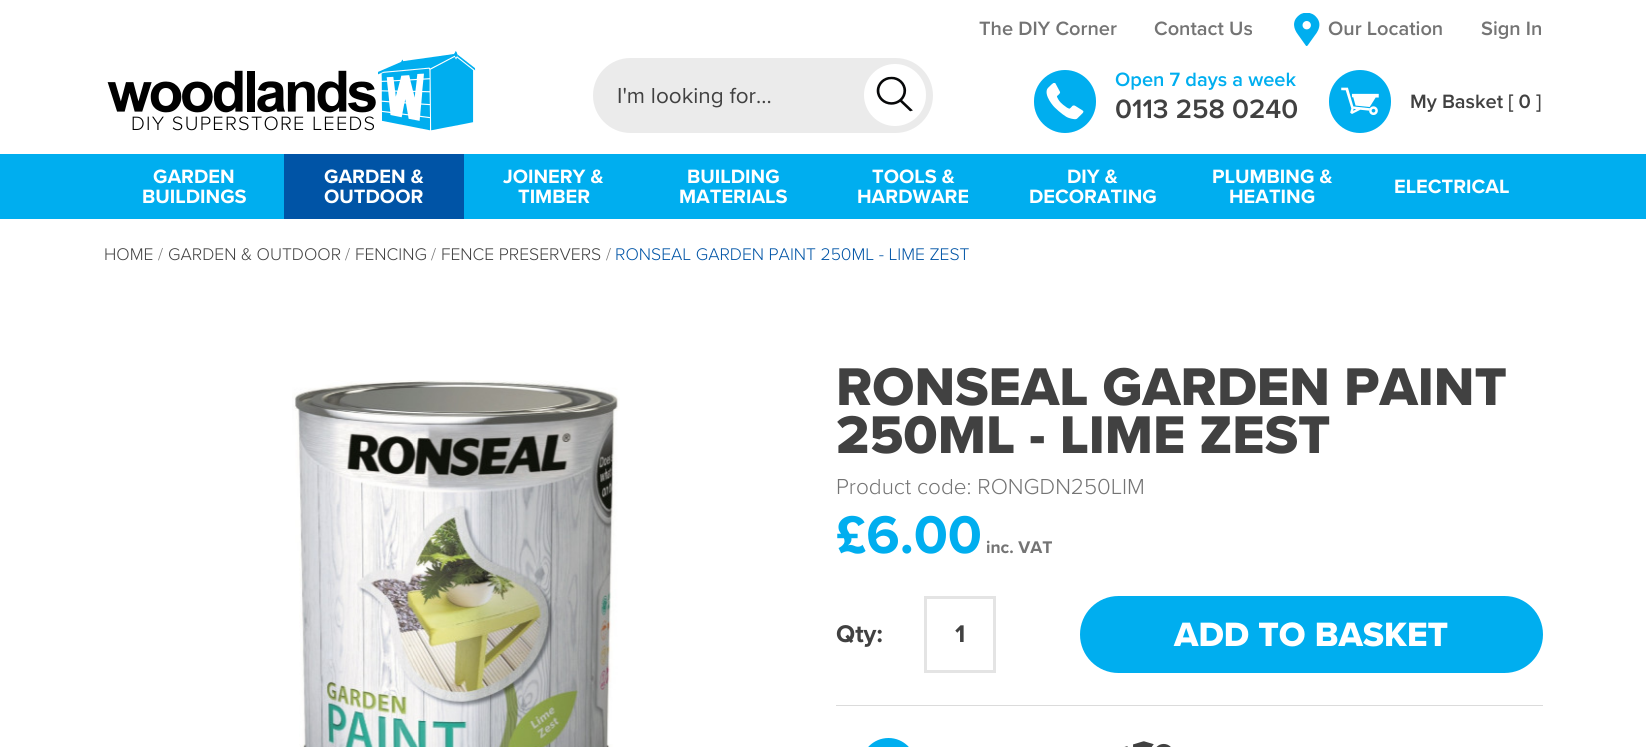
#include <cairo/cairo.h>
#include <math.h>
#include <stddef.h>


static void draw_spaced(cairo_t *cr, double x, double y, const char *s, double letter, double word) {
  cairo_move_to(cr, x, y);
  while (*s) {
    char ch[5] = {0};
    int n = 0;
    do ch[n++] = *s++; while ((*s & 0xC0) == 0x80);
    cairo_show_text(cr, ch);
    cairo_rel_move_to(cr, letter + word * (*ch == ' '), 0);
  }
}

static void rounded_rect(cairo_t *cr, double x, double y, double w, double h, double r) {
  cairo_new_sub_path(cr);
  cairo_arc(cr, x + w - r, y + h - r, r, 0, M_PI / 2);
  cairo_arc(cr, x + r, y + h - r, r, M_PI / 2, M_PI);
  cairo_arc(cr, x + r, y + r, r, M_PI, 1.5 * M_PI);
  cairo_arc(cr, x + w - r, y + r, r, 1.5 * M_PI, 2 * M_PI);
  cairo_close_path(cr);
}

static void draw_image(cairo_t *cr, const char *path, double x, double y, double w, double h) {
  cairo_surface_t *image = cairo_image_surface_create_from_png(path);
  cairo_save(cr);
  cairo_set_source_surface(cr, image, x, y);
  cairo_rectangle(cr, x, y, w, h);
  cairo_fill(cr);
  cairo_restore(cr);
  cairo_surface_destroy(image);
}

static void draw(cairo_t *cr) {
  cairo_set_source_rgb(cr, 1, 1, 1);
  cairo_paint(cr);
  draw_image(cr, "images/1.png", 1294, 13, 26, 33);
  cairo_set_source_rgb(cr, 235 / 255.0, 235 / 255.0, 235 / 255.0);
  rounded_rect(cr, 593, 58, 340, 75, 37.5);
  cairo_fill(cr);
  cairo_set_source_rgb(cr, 1, 1, 1);
  cairo_arc(cr, 895, 95, 31, 0, 2 * M_PI);
  cairo_fill(cr);
  draw_image(cr, "images/2.png", 876, 76, 37, 36);
  cairo_set_source_rgb(cr, 0, 174 / 255.0, 239 / 255.0);
  rounded_rect(cr, 1034, 70, 62, 63, 31);
  cairo_fill(cr);
  draw_image(cr, "images/3.png", 1046, 83, 38, 37);
  rounded_rect(cr, 1329, 70, 62, 63, 31);
  cairo_fill(cr);
  draw_image(cr, "images/4.png", 1341, 87, 38, 28);
  draw_image(cr, "images/5.png", 107, 51, 369, 80);
  cairo_rectangle(cr, 0, 154, 1646, 65);
  cairo_fill(cr);
  cairo_set_source_rgb(cr, 0, 84 / 255.0, 166 / 255.0);
  cairo_rectangle(cr, 284, 154, 180, 65);
  cairo_fill(cr);
  draw_image(cr, "images/6.png", 292, 380, 328, 367);
  cairo_set_source_rgb(cr, 219 / 255.0, 219 / 255.0, 219 / 255.0);
  cairo_rectangle(cr, 836, 705, 707, 1);
  cairo_fill(cr);
  cairo_rectangle(cr, 925.5, 597.5, 69, 74);
  cairo_set_source_rgb(cr, 228 / 255.0, 228 / 255.0, 228 / 255.0);
  cairo_set_line_width(cr, 3);
  cairo_stroke(cr);
  cairo_set_source_rgb(cr, 0, 174 / 255.0, 239 / 255.0);
  rounded_rect(cr, 1080, 596, 463, 77, 38.5);
  cairo_fill(cr);
  rounded_rect(cr, 861, 738, 55, 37, 27.5);
  cairo_fill(cr);
  draw_image(cr, "images/7.png", 1124, 741, 47, 6);
  cairo_select_font_face(cr, "Proxima Nova SemiBold", CAIRO_FONT_SLANT_NORMAL, CAIRO_FONT_WEIGHT_NORMAL);
  cairo_set_font_size(cr, 20);
  cairo_set_source_rgb(cr, 116 / 255.0, 116 / 255.0, 116 / 255.0);
  cairo_move_to(cr, 979, 35);
  cairo_show_text(cr, "The DIY Corner");
  cairo_move_to(cr, 1154, 35);
  cairo_show_text(cr, "Contact Us");
  cairo_move_to(cr, 1328, 35);
  cairo_show_text(cr, "Our Location");
  cairo_move_to(cr, 1481, 35);
  cairo_show_text(cr, "Sign In");
  cairo_select_font_face(cr, "Proxima Nova", CAIRO_FONT_SLANT_NORMAL, CAIRO_FONT_WEIGHT_NORMAL);
  cairo_set_font_size(cr, 22.5);
  cairo_set_source_rgb(cr, 65 / 255.0, 65 / 255.0, 65 / 255.0);
  cairo_move_to(cr, 617, 103);
  cairo_show_text(cr, "I'm looking for...");
  cairo_select_font_face(cr, "Proxima Nova SemiBold", CAIRO_FONT_SLANT_NORMAL, CAIRO_FONT_WEIGHT_NORMAL);
  cairo_set_font_size(cr, 20);
  cairo_set_source_rgb(cr, 0, 174 / 255.0, 239 / 255.0);
  cairo_move_to(cr, 1115, 86);
  cairo_show_text(cr, "Open 7 days a week");
  cairo_set_font_size(cr, 27.5);
  cairo_set_source_rgb(cr, 65 / 255.0, 65 / 255.0, 65 / 255.0);
  cairo_move_to(cr, 1115, 118);
  cairo_show_text(cr, "0113 258 0240");
  cairo_set_font_size(cr, 20);
  cairo_move_to(cr, 1410, 108);
  cairo_show_text(cr, "My Basket [ 0 ]");
  cairo_select_font_face(cr, "Proxima Nova Light", CAIRO_FONT_SLANT_NORMAL, CAIRO_FONT_WEIGHT_NORMAL);
  cairo_set_source_rgb(cr, 0, 0, 0);
  draw_spaced(cr, 131, 130, "DIY SUPERSTORE LEEDS", 1.25, 0);
  cairo_select_font_face(cr, "Proxima Nova", CAIRO_FONT_SLANT_NORMAL, CAIRO_FONT_WEIGHT_BOLD);
  cairo_set_source_rgb(cr, 1, 1, 1);
  cairo_move_to(cr, 153, 183);
  cairo_show_text(cr, "GARDEN");
  cairo_move_to(cr, 142, 203);
  cairo_show_text(cr, "BUILDINGS");
  cairo_move_to(cr, 324, 183);
  cairo_show_text(cr, "GARDEN &");
  cairo_move_to(cr, 324, 203);
  cairo_show_text(cr, "OUTDOOR");
  cairo_move_to(cr, 503, 183);
  cairo_show_text(cr, "JOINERY &");
  cairo_move_to(cr, 518, 203);
  cairo_show_text(cr, "TIMBER");
  cairo_move_to(cr, 687, 183);
  cairo_show_text(cr, "BUILDING");
  cairo_move_to(cr, 679, 203);
  cairo_show_text(cr, "MATERIALS");
  cairo_move_to(cr, 872, 183);
  cairo_show_text(cr, "TOOLS &");
  cairo_move_to(cr, 857, 203);
  cairo_show_text(cr, "HARDWARE");
  cairo_move_to(cr, 1067, 183);
  cairo_show_text(cr, "DIY &");
  cairo_move_to(cr, 1029, 203);
  cairo_show_text(cr, "DECORATING");
  cairo_move_to(cr, 1212, 183);
  cairo_show_text(cr, "PLUMBING &");
  cairo_move_to(cr, 1229, 203);
  cairo_show_text(cr, "HEATING");
  cairo_move_to(cr, 1394, 193);
  cairo_show_text(cr, "ELECTRICAL");
  cairo_select_font_face(cr, "Proxima Nova Light", CAIRO_FONT_SLANT_NORMAL, CAIRO_FONT_WEIGHT_NORMAL);
  cairo_set_font_size(cr, 17.5);
  cairo_set_source_rgb(cr, 65 / 255.0, 65 / 255.0, 65 / 255.0);
  cairo_move_to(cr, 104, 260);
  cairo_show_text(cr, "HOME");
  cairo_set_source_rgb(cr, 116 / 255.0, 116 / 255.0, 116 / 255.0);
  cairo_move_to(cr, 158, 260);
  cairo_show_text(cr, "/");
  cairo_set_source_rgb(cr, 65 / 255.0, 65 / 255.0, 65 / 255.0);
  cairo_move_to(cr, 168, 260);
  cairo_show_text(cr, "GARDEN & OUTDOOR");
  cairo_set_source_rgb(cr, 116 / 255.0, 116 / 255.0, 116 / 255.0);
  cairo_move_to(cr, 345, 260);
  cairo_show_text(cr, "/");
  cairo_set_source_rgb(cr, 65 / 255.0, 65 / 255.0, 65 / 255.0);
  cairo_move_to(cr, 355, 260);
  cairo_show_text(cr, "FENCING");
  cairo_set_source_rgb(cr, 116 / 255.0, 116 / 255.0, 116 / 255.0);
  cairo_move_to(cr, 431, 260);
  cairo_show_text(cr, "/");
  cairo_set_source_rgb(cr, 65 / 255.0, 65 / 255.0, 65 / 255.0);
  cairo_move_to(cr, 441, 260);
  cairo_show_text(cr, "FENCE PRESERVERS");
  cairo_set_source_rgb(cr, 116 / 255.0, 116 / 255.0, 116 / 255.0);
  cairo_move_to(cr, 606, 260);
  cairo_show_text(cr, "/");
  cairo_set_source_rgb(cr, 0, 84 / 255.0, 166 / 255.0);
  cairo_move_to(cr, 615, 260);
  cairo_show_text(cr, "RONSEAL GARDEN PAINT 250ML - LIME ZEST");
  cairo_select_font_face(cr, "Proxima Nova ExtraBold", CAIRO_FONT_SLANT_NORMAL, CAIRO_FONT_WEIGHT_NORMAL);
  cairo_set_font_size(cr, 55);
  cairo_set_source_rgb(cr, 65 / 255.0, 65 / 255.0, 65 / 255.0);
  cairo_move_to(cr, 836, 405);
  cairo_show_text(cr, "RONSEAL GARDEN PAINT");
  cairo_move_to(cr, 836, 453);
  cairo_show_text(cr, "250ML - LIME ZEST");
  cairo_select_font_face(cr, "Proxima Nova Light", CAIRO_FONT_SLANT_NORMAL, CAIRO_FONT_WEIGHT_NORMAL);
  cairo_set_font_size(cr, 22.5);
  cairo_set_source_rgb(cr, 116 / 255.0, 116 / 255.0, 116 / 255.0);
  cairo_move_to(cr, 836, 494);
  cairo_show_text(cr, "Product code: RONGDN250LIM");
  cairo_select_font_face(cr, "Proxima Nova", CAIRO_FONT_SLANT_NORMAL, CAIRO_FONT_WEIGHT_BOLD);
  cairo_set_font_size(cr, 55);
  cairo_set_source_rgb(cr, 0, 174 / 255.0, 239 / 255.0);
  cairo_move_to(cr, 836, 553);
  cairo_show_text(cr, "£6.00");
  cairo_set_font_size(cr, 17.5);
  cairo_set_source_rgb(cr, 116 / 255.0, 116 / 255.0, 116 / 255.0);
  cairo_move_to(cr, 986, 553);
  cairo_show_text(cr, "inc. VAT");
  cairo_set_font_size(cr, 25);
  cairo_set_source_rgb(cr, 65 / 255.0, 65 / 255.0, 65 / 255.0);
  cairo_move_to(cr, 836, 642);
  cairo_show_text(cr, "Qty:");
  cairo_move_to(cr, 955, 642);
  cairo_show_text(cr, "1");
  cairo_select_font_face(cr, "Proxima Nova ExtraBold", CAIRO_FONT_SLANT_NORMAL, CAIRO_FONT_WEIGHT_NORMAL);
  cairo_set_font_size(cr, 35);
  cairo_set_source_rgb(cr, 1, 1, 1);
  cairo_move_to(cr, 1174, 646);
  cairo_show_text(cr, "ADD TO BASKET");
}

int main(void) {
  cairo_surface_t *surface = cairo_image_surface_create(CAIRO_FORMAT_RGB24, 1646, 747);
  cairo_t *cr = cairo_create(surface);
  cairo_font_options_t *options = cairo_font_options_create();
  cairo_font_options_set_hint_metrics(options, CAIRO_HINT_METRICS_OFF);
  cairo_font_options_set_hint_style(options, CAIRO_HINT_STYLE_NONE);
  cairo_set_font_options(cr, options);
  cairo_set_miter_limit(cr, 4);
  draw(cr);
  cairo_surface_write_to_png(surface, "out.png");
  cairo_font_options_destroy(options);
  cairo_destroy(cr);
  cairo_surface_destroy(surface);
  return 0;
}
